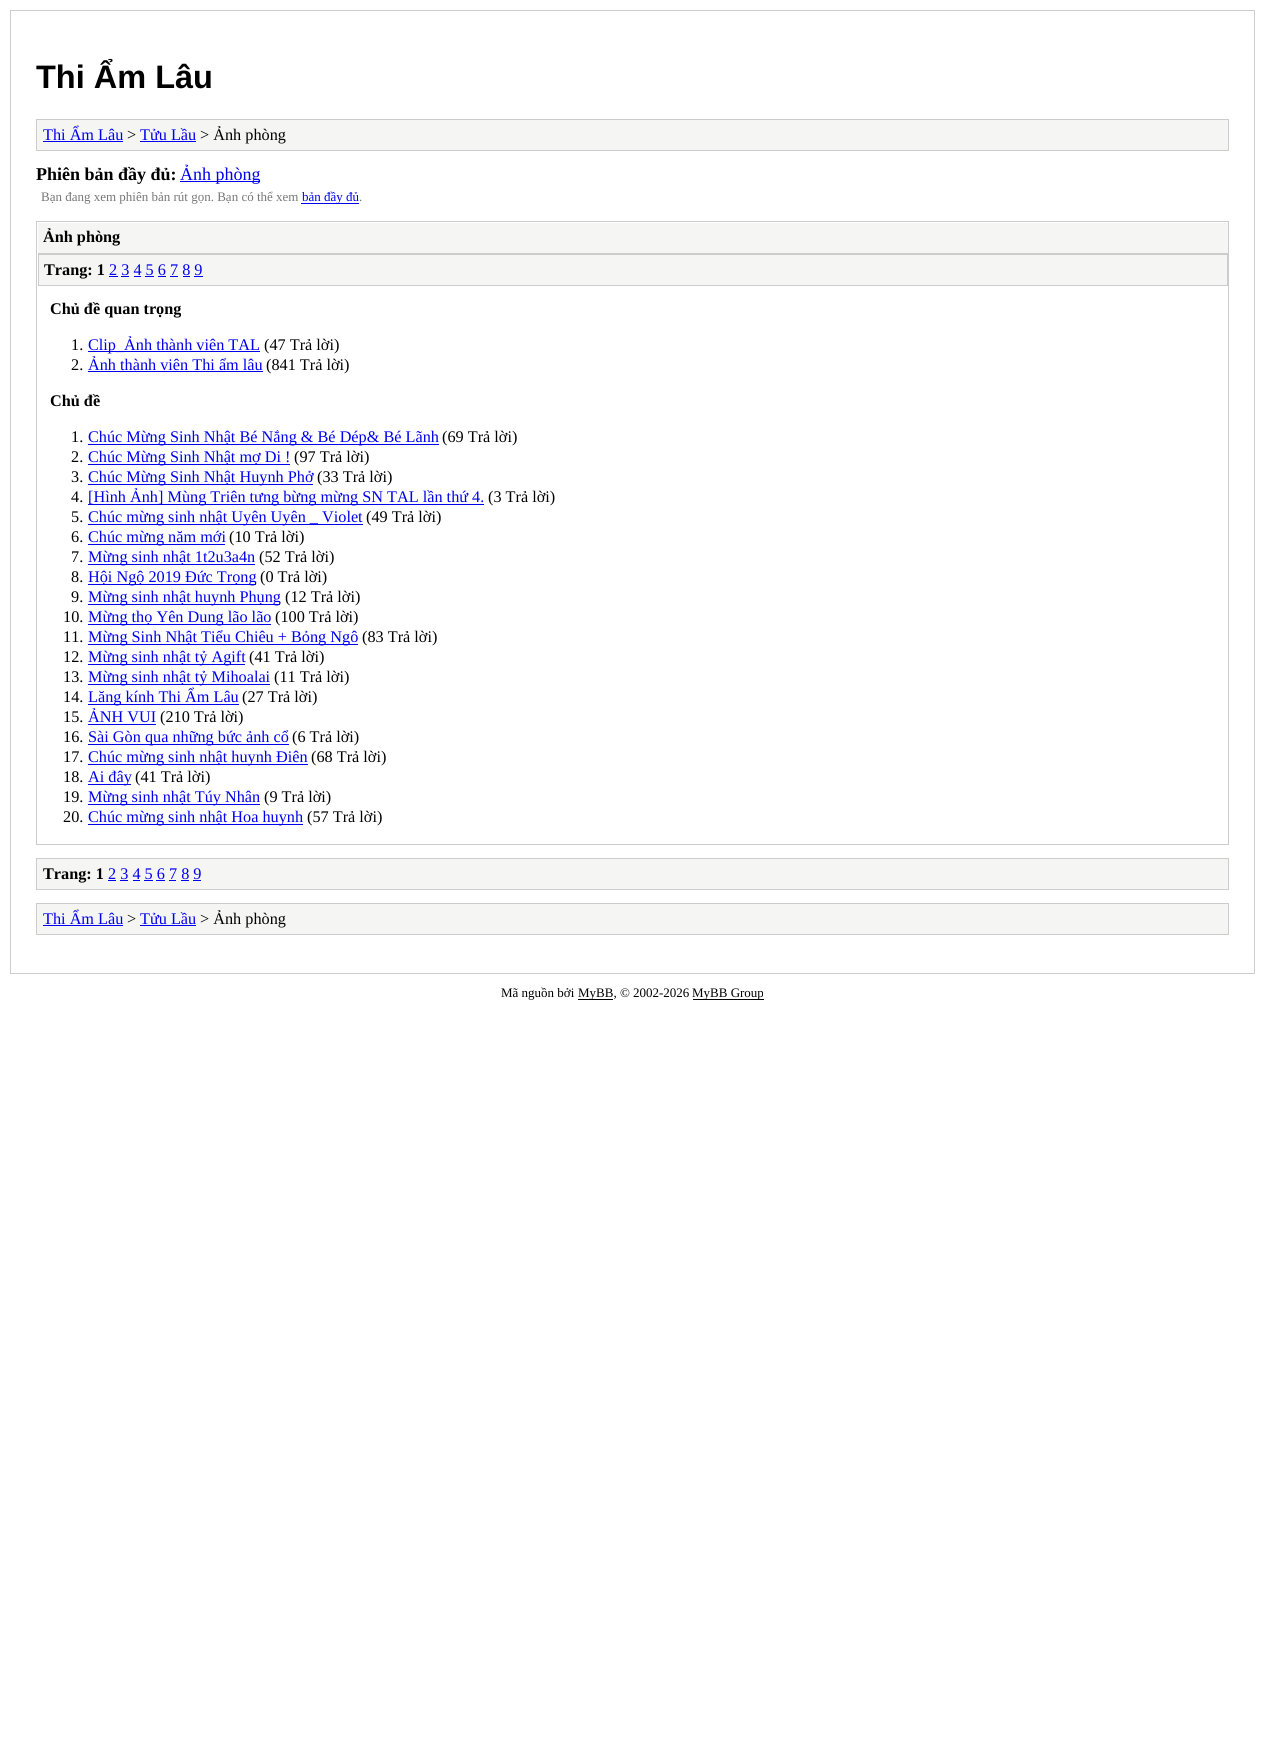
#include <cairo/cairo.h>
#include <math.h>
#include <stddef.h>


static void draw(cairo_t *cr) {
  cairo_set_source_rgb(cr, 1, 1, 1);
  cairo_paint(cr);
  cairo_rectangle(cr, 10.5, 10.5, 1244, 963);
  cairo_set_source_rgb(cr, 204 / 255.0, 204 / 255.0, 204 / 255.0);
  cairo_set_line_width(cr, 1);
  cairo_stroke(cr);
  cairo_set_source_rgb(cr, 245 / 255.0, 245 / 255.0, 244 / 255.0);
  cairo_rectangle(cr, 36.5, 119.5, 1192, 31);
  cairo_fill_preserve(cr);
  cairo_set_source_rgb(cr, 204 / 255.0, 204 / 255.0, 204 / 255.0);
  cairo_stroke(cr);
  cairo_set_source_rgb(cr, 0, 0, 238 / 255.0);
  cairo_rectangle(cr, 43, 141, 80, 1);
  cairo_fill(cr);
  cairo_rectangle(cr, 140, 141, 56, 1);
  cairo_fill(cr);
  cairo_rectangle(cr, 180, 181, 80, 1);
  cairo_fill(cr);
  cairo_rectangle(cr, 301, 203, 58, 1);
  cairo_fill(cr);
  cairo_rectangle(cr, 36.5, 221.5, 1192, 623);
  cairo_set_source_rgb(cr, 204 / 255.0, 204 / 255.0, 204 / 255.0);
  cairo_stroke(cr);
  cairo_set_source_rgb(cr, 245 / 255.0, 245 / 255.0, 244 / 255.0);
  cairo_rectangle(cr, 38, 223, 1190, 30);
  cairo_fill(cr);
  cairo_set_source_rgb(cr, 204 / 255.0, 204 / 255.0, 204 / 255.0);
  cairo_rectangle(cr, 38, 253, 1190, 1);
  cairo_fill(cr);
  cairo_set_source_rgb(cr, 245 / 255.0, 245 / 255.0, 244 / 255.0);
  cairo_rectangle(cr, 38.5, 254.5, 1189, 31);
  cairo_fill_preserve(cr);
  cairo_set_source_rgb(cr, 204 / 255.0, 204 / 255.0, 204 / 255.0);
  cairo_stroke(cr);
  cairo_set_source_rgb(cr, 0, 0, 238 / 255.0);
  cairo_rectangle(cr, 109, 276, 9, 1);
  cairo_fill(cr);
  cairo_rectangle(cr, 121, 276, 8, 1);
  cairo_fill(cr);
  cairo_rectangle(cr, 134, 276, 7, 1);
  cairo_fill(cr);
  cairo_rectangle(cr, 145, 276, 9, 1);
  cairo_fill(cr);
  cairo_rectangle(cr, 158, 276, 8, 1);
  cairo_fill(cr);
  cairo_rectangle(cr, 170, 276, 8, 1);
  cairo_fill(cr);
  cairo_rectangle(cr, 183, 276, 7, 1);
  cairo_fill(cr);
  cairo_rectangle(cr, 194, 276, 9, 1);
  cairo_fill(cr);
  cairo_rectangle(cr, 88, 351, 172, 1);
  cairo_fill(cr);
  cairo_rectangle(cr, 88, 371, 175, 1);
  cairo_fill(cr);
  cairo_rectangle(cr, 88, 444, 351, 1);
  cairo_fill(cr);
  cairo_rectangle(cr, 88, 464, 202, 1);
  cairo_fill(cr);
  cairo_rectangle(cr, 88, 484, 225, 1);
  cairo_fill(cr);
  cairo_rectangle(cr, 88, 504, 396, 1);
  cairo_fill(cr);
  cairo_rectangle(cr, 88, 524, 275, 1);
  cairo_fill(cr);
  cairo_rectangle(cr, 88, 544, 137, 1);
  cairo_fill(cr);
  cairo_rectangle(cr, 88, 564, 167, 1);
  cairo_fill(cr);
  cairo_rectangle(cr, 88, 584, 168, 1);
  cairo_fill(cr);
  cairo_rectangle(cr, 88, 604, 192, 1);
  cairo_fill(cr);
  cairo_rectangle(cr, 88, 624, 183, 1);
  cairo_fill(cr);
  cairo_rectangle(cr, 88, 644, 270, 1);
  cairo_fill(cr);
  cairo_rectangle(cr, 88, 664, 157, 1);
  cairo_fill(cr);
  cairo_rectangle(cr, 88, 684, 182, 1);
  cairo_fill(cr);
  cairo_rectangle(cr, 88, 704, 151, 1);
  cairo_fill(cr);
  cairo_rectangle(cr, 88, 724, 68, 1);
  cairo_fill(cr);
  cairo_rectangle(cr, 88, 744, 201, 1);
  cairo_fill(cr);
  cairo_rectangle(cr, 88, 764, 220, 1);
  cairo_fill(cr);
  cairo_rectangle(cr, 88, 784, 43, 1);
  cairo_fill(cr);
  cairo_rectangle(cr, 88, 804, 172, 1);
  cairo_fill(cr);
  cairo_rectangle(cr, 88, 824, 215, 1);
  cairo_fill(cr);
  cairo_set_source_rgb(cr, 245 / 255.0, 245 / 255.0, 244 / 255.0);
  cairo_rectangle(cr, 36.5, 858.5, 1192, 31);
  cairo_fill_preserve(cr);
  cairo_set_source_rgb(cr, 204 / 255.0, 204 / 255.0, 204 / 255.0);
  cairo_stroke(cr);
  cairo_set_source_rgb(cr, 0, 0, 238 / 255.0);
  cairo_rectangle(cr, 108, 880, 8, 1);
  cairo_fill(cr);
  cairo_rectangle(cr, 120, 880, 8, 1);
  cairo_fill(cr);
  cairo_rectangle(cr, 133, 880, 7, 1);
  cairo_fill(cr);
  cairo_rectangle(cr, 144, 880, 9, 1);
  cairo_fill(cr);
  cairo_rectangle(cr, 156, 880, 9, 1);
  cairo_fill(cr);
  cairo_rectangle(cr, 169, 880, 7, 1);
  cairo_fill(cr);
  cairo_rectangle(cr, 181, 880, 8, 1);
  cairo_fill(cr);
  cairo_rectangle(cr, 193, 880, 8, 1);
  cairo_fill(cr);
  cairo_set_source_rgb(cr, 245 / 255.0, 245 / 255.0, 244 / 255.0);
  cairo_rectangle(cr, 36.5, 903.5, 1192, 31);
  cairo_fill_preserve(cr);
  cairo_set_source_rgb(cr, 204 / 255.0, 204 / 255.0, 204 / 255.0);
  cairo_stroke(cr);
  cairo_set_source_rgb(cr, 0, 0, 238 / 255.0);
  cairo_rectangle(cr, 43, 925, 80, 1);
  cairo_fill(cr);
  cairo_rectangle(cr, 140, 925, 56, 1);
  cairo_fill(cr);
  cairo_set_source_rgb(cr, 0, 0, 0);
  cairo_rectangle(cr, 578, 999, 35, 1);
  cairo_fill(cr);
  cairo_rectangle(cr, 693, 999, 71, 1);
  cairo_fill(cr);
  cairo_select_font_face(cr, "Liberation Sans", CAIRO_FONT_SLANT_NORMAL, CAIRO_FONT_WEIGHT_BOLD);
  cairo_set_font_size(cr, 32.5);
  cairo_move_to(cr, 36, 88);
  cairo_show_text(cr, "Thi Ẩm Lâu");
  cairo_select_font_face(cr, "Liberation Serif", CAIRO_FONT_SLANT_NORMAL, CAIRO_FONT_WEIGHT_NORMAL);
  cairo_set_font_size(cr, 16.25);
  cairo_set_source_rgb(cr, 0, 0, 238 / 255.0);
  cairo_move_to(cr, 43, 140);
  cairo_show_text(cr, "Thi Ẩm Lâu");
  cairo_set_source_rgb(cr, 0, 0, 0);
  cairo_move_to(cr, 127, 140);
  cairo_show_text(cr, ">");
  cairo_set_source_rgb(cr, 0, 0, 238 / 255.0);
  cairo_move_to(cr, 140, 140);
  cairo_show_text(cr, "Tửu Lầu");
  cairo_set_source_rgb(cr, 0, 0, 0);
  cairo_move_to(cr, 200, 140);
  cairo_show_text(cr, "> Ảnh phòng");
  cairo_select_font_face(cr, "Liberation Serif", CAIRO_FONT_SLANT_NORMAL, CAIRO_FONT_WEIGHT_BOLD);
  cairo_set_font_size(cr, 18);
  cairo_move_to(cr, 36, 180);
  cairo_show_text(cr, "Phiên bản đầy đủ:");
  cairo_select_font_face(cr, "Liberation Serif", CAIRO_FONT_SLANT_NORMAL, CAIRO_FONT_WEIGHT_NORMAL);
  cairo_set_source_rgb(cr, 0, 0, 238 / 255.0);
  cairo_move_to(cr, 180, 180);
  cairo_show_text(cr, "Ảnh phòng");
  cairo_set_font_size(cr, 13);
  cairo_set_source_rgb(cr, 119 / 255.0, 119 / 255.0, 119 / 255.0);
  cairo_move_to(cr, 41, 201);
  cairo_show_text(cr, "Bạn đang xem phiên bản rút gọn. Bạn có thể xem");
  cairo_set_source_rgb(cr, 0, 0, 238 / 255.0);
  cairo_move_to(cr, 302, 201);
  cairo_show_text(cr, "bản đầy đủ");
  cairo_set_source_rgb(cr, 119 / 255.0, 119 / 255.0, 119 / 255.0);
  cairo_move_to(cr, 359, 201);
  cairo_show_text(cr, ".");
  cairo_select_font_face(cr, "Liberation Serif", CAIRO_FONT_SLANT_NORMAL, CAIRO_FONT_WEIGHT_BOLD);
  cairo_set_font_size(cr, 16.25);
  cairo_set_source_rgb(cr, 0, 0, 0);
  cairo_move_to(cr, 43, 242);
  cairo_show_text(cr, "Ảnh phòng");
  cairo_move_to(cr, 44, 275);
  cairo_show_text(cr, "Trang: 1");
  cairo_select_font_face(cr, "Liberation Serif", CAIRO_FONT_SLANT_NORMAL, CAIRO_FONT_WEIGHT_NORMAL);
  cairo_set_source_rgb(cr, 0, 0, 238 / 255.0);
  cairo_move_to(cr, 109, 275);
  cairo_show_text(cr, "2 3 4 5 6 7 8 9");
  cairo_select_font_face(cr, "Liberation Serif", CAIRO_FONT_SLANT_NORMAL, CAIRO_FONT_WEIGHT_BOLD);
  cairo_set_source_rgb(cr, 0, 0, 0);
  cairo_move_to(cr, 50, 314);
  cairo_show_text(cr, "Chủ đề quan trọng");
  cairo_select_font_face(cr, "Liberation Serif", CAIRO_FONT_SLANT_NORMAL, CAIRO_FONT_WEIGHT_NORMAL);
  cairo_move_to(cr, 71, 350);
  cairo_show_text(cr, "1.");
  cairo_set_source_rgb(cr, 0, 0, 238 / 255.0);
  cairo_move_to(cr, 88, 350);
  cairo_show_text(cr, "Clip_Ảnh thành viên TAL");
  cairo_set_source_rgb(cr, 0, 0, 0);
  cairo_move_to(cr, 264, 350);
  cairo_show_text(cr, "(47 Trả lời)");
  cairo_move_to(cr, 71, 370);
  cairo_show_text(cr, "2.");
  cairo_set_source_rgb(cr, 0, 0, 238 / 255.0);
  cairo_move_to(cr, 88, 370);
  cairo_show_text(cr, "Ảnh thành viên Thi ẩm lâu");
  cairo_set_source_rgb(cr, 0, 0, 0);
  cairo_move_to(cr, 266, 370);
  cairo_show_text(cr, "(841 Trả lời)");
  cairo_select_font_face(cr, "Liberation Serif", CAIRO_FONT_SLANT_NORMAL, CAIRO_FONT_WEIGHT_BOLD);
  cairo_move_to(cr, 50, 406);
  cairo_show_text(cr, "Chủ đề");
  cairo_select_font_face(cr, "Liberation Serif", CAIRO_FONT_SLANT_NORMAL, CAIRO_FONT_WEIGHT_NORMAL);
  cairo_move_to(cr, 71, 442);
  cairo_show_text(cr, "1.");
  cairo_set_source_rgb(cr, 0, 0, 238 / 255.0);
  cairo_move_to(cr, 88, 442);
  cairo_show_text(cr, "Chúc Mừng Sinh Nhật Bé Nắng & Bé Dép& Bé Lãnh");
  cairo_set_source_rgb(cr, 0, 0, 0);
  cairo_move_to(cr, 442, 442);
  cairo_show_text(cr, "(69 Trả lời)");
  cairo_move_to(cr, 71, 462);
  cairo_show_text(cr, "2.");
  cairo_set_source_rgb(cr, 0, 0, 238 / 255.0);
  cairo_move_to(cr, 88, 462);
  cairo_show_text(cr, "Chúc Mừng Sinh Nhật mợ Di !");
  cairo_set_source_rgb(cr, 0, 0, 0);
  cairo_move_to(cr, 294, 462);
  cairo_show_text(cr, "(97 Trả lời)");
  cairo_move_to(cr, 71, 482);
  cairo_show_text(cr, "3.");
  cairo_set_source_rgb(cr, 0, 0, 238 / 255.0);
  cairo_move_to(cr, 88, 482);
  cairo_show_text(cr, "Chúc Mừng Sinh Nhật Huynh Phở");
  cairo_set_source_rgb(cr, 0, 0, 0);
  cairo_move_to(cr, 317, 482);
  cairo_show_text(cr, "(33 Trả lời)");
  cairo_move_to(cr, 71, 502);
  cairo_show_text(cr, "4.");
  cairo_set_source_rgb(cr, 0, 0, 238 / 255.0);
  cairo_move_to(cr, 88, 502);
  cairo_show_text(cr, "[Hình Ảnh] Mùng Triên tưng bừng mừng SN TAL lần thứ 4.");
  cairo_set_source_rgb(cr, 0, 0, 0);
  cairo_move_to(cr, 488, 502);
  cairo_show_text(cr, "(3 Trả lời)");
  cairo_move_to(cr, 71, 522);
  cairo_show_text(cr, "5.");
  cairo_set_source_rgb(cr, 0, 0, 238 / 255.0);
  cairo_move_to(cr, 88, 522);
  cairo_show_text(cr, "Chúc mừng sinh nhật Uyên Uyên _ Violet");
  cairo_set_source_rgb(cr, 0, 0, 0);
  cairo_move_to(cr, 366, 522);
  cairo_show_text(cr, "(49 Trả lời)");
  cairo_move_to(cr, 71, 542);
  cairo_show_text(cr, "6.");
  cairo_set_source_rgb(cr, 0, 0, 238 / 255.0);
  cairo_move_to(cr, 88, 542);
  cairo_show_text(cr, "Chúc mừng năm mới");
  cairo_set_source_rgb(cr, 0, 0, 0);
  cairo_move_to(cr, 229, 542);
  cairo_show_text(cr, "(10 Trả lời)");
  cairo_move_to(cr, 71, 562);
  cairo_show_text(cr, "7.");
  cairo_set_source_rgb(cr, 0, 0, 238 / 255.0);
  cairo_move_to(cr, 88, 562);
  cairo_show_text(cr, "Mừng sinh nhật 1t2u3a4n");
  cairo_set_source_rgb(cr, 0, 0, 0);
  cairo_move_to(cr, 259, 562);
  cairo_show_text(cr, "(52 Trả lời)");
  cairo_move_to(cr, 71, 582);
  cairo_show_text(cr, "8.");
  cairo_set_source_rgb(cr, 0, 0, 238 / 255.0);
  cairo_move_to(cr, 88, 582);
  cairo_show_text(cr, "Hội Ngộ 2019 Đức Trọng");
  cairo_set_source_rgb(cr, 0, 0, 0);
  cairo_move_to(cr, 260, 582);
  cairo_show_text(cr, "(0 Trả lời)");
  cairo_move_to(cr, 71, 602);
  cairo_show_text(cr, "9.");
  cairo_set_source_rgb(cr, 0, 0, 238 / 255.0);
  cairo_move_to(cr, 88, 602);
  cairo_show_text(cr, "Mừng sinh nhật huynh Phụng");
  cairo_set_source_rgb(cr, 0, 0, 0);
  cairo_move_to(cr, 285, 602);
  cairo_show_text(cr, "(12 Trả lời)");
  cairo_move_to(cr, 63, 622);
  cairo_show_text(cr, "10.");
  cairo_set_source_rgb(cr, 0, 0, 238 / 255.0);
  cairo_move_to(cr, 88, 622);
  cairo_show_text(cr, "Mừng thọ Yên Dung lão lão");
  cairo_set_source_rgb(cr, 0, 0, 0);
  cairo_move_to(cr, 275, 622);
  cairo_show_text(cr, "(100 Trả lời)");
  cairo_move_to(cr, 63, 642);
  cairo_show_text(cr, "11.");
  cairo_set_source_rgb(cr, 0, 0, 238 / 255.0);
  cairo_move_to(cr, 88, 642);
  cairo_show_text(cr, "Mừng Sinh Nhật Tiểu Chiêu + Bỏng Ngô");
  cairo_set_source_rgb(cr, 0, 0, 0);
  cairo_move_to(cr, 362, 642);
  cairo_show_text(cr, "(83 Trả lời)");
  cairo_move_to(cr, 63, 662);
  cairo_show_text(cr, "12.");
  cairo_set_source_rgb(cr, 0, 0, 238 / 255.0);
  cairo_move_to(cr, 88, 662);
  cairo_show_text(cr, "Mừng sinh nhật tỷ Agift");
  cairo_set_source_rgb(cr, 0, 0, 0);
  cairo_move_to(cr, 249, 662);
  cairo_show_text(cr, "(41 Trả lời)");
  cairo_move_to(cr, 63, 682);
  cairo_show_text(cr, "13.");
  cairo_set_source_rgb(cr, 0, 0, 238 / 255.0);
  cairo_move_to(cr, 88, 682);
  cairo_show_text(cr, "Mừng sinh nhật tỷ Mihoalai");
  cairo_set_source_rgb(cr, 0, 0, 0);
  cairo_move_to(cr, 274, 682);
  cairo_show_text(cr, "(11 Trả lời)");
  cairo_move_to(cr, 63, 702);
  cairo_show_text(cr, "14.");
  cairo_set_source_rgb(cr, 0, 0, 238 / 255.0);
  cairo_move_to(cr, 88, 702);
  cairo_show_text(cr, "Lăng kính Thi Ẩm Lâu");
  cairo_set_source_rgb(cr, 0, 0, 0);
  cairo_move_to(cr, 242, 702);
  cairo_show_text(cr, "(27 Trả lời)");
  cairo_move_to(cr, 63, 722);
  cairo_show_text(cr, "15.");
  cairo_set_source_rgb(cr, 0, 0, 238 / 255.0);
  cairo_move_to(cr, 88, 722);
  cairo_show_text(cr, "ẢNH VUI");
  cairo_set_source_rgb(cr, 0, 0, 0);
  cairo_move_to(cr, 160, 722);
  cairo_show_text(cr, "(210 Trả lời)");
  cairo_move_to(cr, 63, 742);
  cairo_show_text(cr, "16.");
  cairo_set_source_rgb(cr, 0, 0, 238 / 255.0);
  cairo_move_to(cr, 88, 742);
  cairo_show_text(cr, "Sài Gòn qua những bức ảnh cổ");
  cairo_set_source_rgb(cr, 0, 0, 0);
  cairo_move_to(cr, 292, 742);
  cairo_show_text(cr, "(6 Trả lời)");
  cairo_move_to(cr, 63, 762);
  cairo_show_text(cr, "17.");
  cairo_set_source_rgb(cr, 0, 0, 238 / 255.0);
  cairo_move_to(cr, 88, 762);
  cairo_show_text(cr, "Chúc mừng sinh nhật huynh Điên");
  cairo_set_source_rgb(cr, 0, 0, 0);
  cairo_move_to(cr, 311, 762);
  cairo_show_text(cr, "(68 Trả lời)");
  cairo_move_to(cr, 63, 782);
  cairo_show_text(cr, "18.");
  cairo_set_source_rgb(cr, 0, 0, 238 / 255.0);
  cairo_move_to(cr, 88, 782);
  cairo_show_text(cr, "Ai đây");
  cairo_set_source_rgb(cr, 0, 0, 0);
  cairo_move_to(cr, 135, 782);
  cairo_show_text(cr, "(41 Trả lời)");
  cairo_move_to(cr, 63, 802);
  cairo_show_text(cr, "19.");
  cairo_set_source_rgb(cr, 0, 0, 238 / 255.0);
  cairo_move_to(cr, 88, 802);
  cairo_show_text(cr, "Mừng sinh nhật Túy Nhân");
  cairo_set_source_rgb(cr, 0, 0, 0);
  cairo_move_to(cr, 264, 802);
  cairo_show_text(cr, "(9 Trả lời)");
  cairo_move_to(cr, 63, 822);
  cairo_show_text(cr, "20.");
  cairo_set_source_rgb(cr, 0, 0, 238 / 255.0);
  cairo_move_to(cr, 88, 822);
  cairo_show_text(cr, "Chúc mừng sinh nhật Hoa huynh");
  cairo_set_source_rgb(cr, 0, 0, 0);
  cairo_move_to(cr, 307, 822);
  cairo_show_text(cr, "(57 Trả lời)");
  cairo_select_font_face(cr, "Liberation Serif", CAIRO_FONT_SLANT_NORMAL, CAIRO_FONT_WEIGHT_BOLD);
  cairo_move_to(cr, 43, 879);
  cairo_show_text(cr, "Trang: 1");
  cairo_select_font_face(cr, "Liberation Serif", CAIRO_FONT_SLANT_NORMAL, CAIRO_FONT_WEIGHT_NORMAL);
  cairo_set_source_rgb(cr, 0, 0, 238 / 255.0);
  cairo_move_to(cr, 108, 879);
  cairo_show_text(cr, "2 3 4 5 6 7 8 9");
  cairo_move_to(cr, 43, 924);
  cairo_show_text(cr, "Thi Ẩm Lâu");
  cairo_set_source_rgb(cr, 0, 0, 0);
  cairo_move_to(cr, 127, 924);
  cairo_show_text(cr, ">");
  cairo_set_source_rgb(cr, 0, 0, 238 / 255.0);
  cairo_move_to(cr, 140, 924);
  cairo_show_text(cr, "Tửu Lầu");
  cairo_set_source_rgb(cr, 0, 0, 0);
  cairo_move_to(cr, 200, 924);
  cairo_show_text(cr, "> Ảnh phòng");
  cairo_set_font_size(cr, 13);
  cairo_move_to(cr, 501, 997);
  cairo_show_text(cr, "Mã nguồn bởi");
  cairo_move_to(cr, 578, 997);
  cairo_show_text(cr, "MyBB, © 2002-2026");
  cairo_move_to(cr, 692, 997);
  cairo_show_text(cr, "MyBB Group");
}

int main(void) {
  cairo_surface_t *surface = cairo_image_surface_create(CAIRO_FORMAT_RGB24, 1265, 1746);
  cairo_t *cr = cairo_create(surface);
  cairo_font_options_t *options = cairo_font_options_create();
  cairo_font_options_set_hint_metrics(options, CAIRO_HINT_METRICS_OFF);
  cairo_font_options_set_hint_style(options, CAIRO_HINT_STYLE_NONE);
  cairo_set_font_options(cr, options);
  cairo_set_miter_limit(cr, 4);
  draw(cr);
  cairo_surface_write_to_png(surface, "out.png");
  cairo_font_options_destroy(options);
  cairo_destroy(cr);
  cairo_surface_destroy(surface);
  return 0;
}
